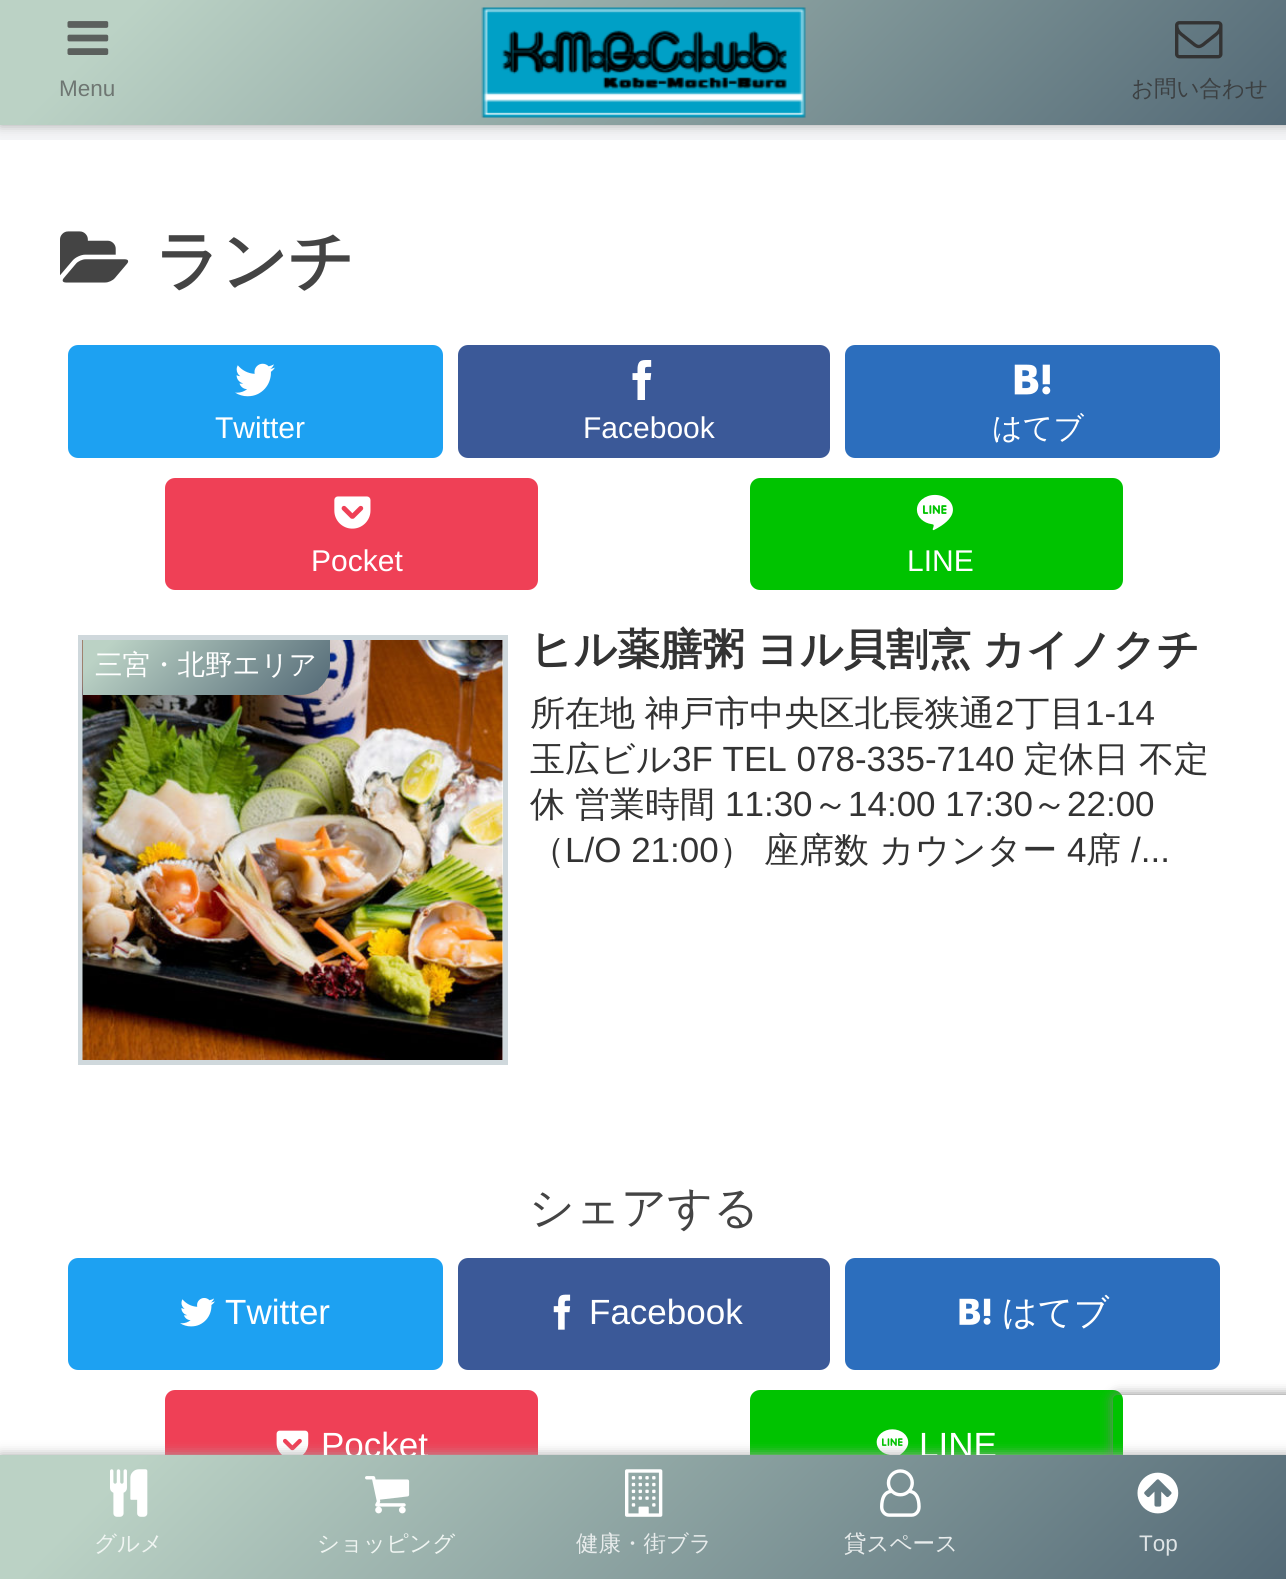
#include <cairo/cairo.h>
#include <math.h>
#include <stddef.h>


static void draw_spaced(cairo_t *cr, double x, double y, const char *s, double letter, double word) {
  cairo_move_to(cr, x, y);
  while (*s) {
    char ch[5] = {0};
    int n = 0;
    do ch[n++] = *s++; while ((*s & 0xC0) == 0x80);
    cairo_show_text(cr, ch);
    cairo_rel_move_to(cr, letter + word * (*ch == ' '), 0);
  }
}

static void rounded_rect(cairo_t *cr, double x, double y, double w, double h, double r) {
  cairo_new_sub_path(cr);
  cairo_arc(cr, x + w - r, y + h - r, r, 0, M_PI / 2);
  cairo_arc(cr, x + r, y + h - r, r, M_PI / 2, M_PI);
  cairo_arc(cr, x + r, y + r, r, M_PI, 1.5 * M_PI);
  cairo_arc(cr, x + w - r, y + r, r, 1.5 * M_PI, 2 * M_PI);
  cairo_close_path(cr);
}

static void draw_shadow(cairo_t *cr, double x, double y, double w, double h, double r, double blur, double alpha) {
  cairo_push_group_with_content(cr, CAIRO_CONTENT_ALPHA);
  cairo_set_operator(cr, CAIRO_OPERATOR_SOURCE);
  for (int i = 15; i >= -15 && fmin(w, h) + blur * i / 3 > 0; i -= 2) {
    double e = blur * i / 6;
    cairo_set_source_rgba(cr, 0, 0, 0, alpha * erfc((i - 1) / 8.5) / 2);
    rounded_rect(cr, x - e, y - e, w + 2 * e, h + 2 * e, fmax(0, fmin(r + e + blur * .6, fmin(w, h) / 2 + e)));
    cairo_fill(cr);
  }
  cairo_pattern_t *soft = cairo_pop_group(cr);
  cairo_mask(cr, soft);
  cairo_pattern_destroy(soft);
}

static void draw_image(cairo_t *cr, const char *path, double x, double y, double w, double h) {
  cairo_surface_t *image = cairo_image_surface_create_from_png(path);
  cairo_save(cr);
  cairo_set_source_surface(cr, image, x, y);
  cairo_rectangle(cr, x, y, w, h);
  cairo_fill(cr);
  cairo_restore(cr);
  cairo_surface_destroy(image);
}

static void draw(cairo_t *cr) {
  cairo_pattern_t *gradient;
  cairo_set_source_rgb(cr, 244 / 255.0, 245 / 255.0, 247 / 255.0);
  cairo_paint(cr);
  cairo_set_source_rgb(cr, 1, 1, 1);
  cairo_rectangle(cr, 0, 140, 1286, 1315);
  cairo_fill(cr);
  cairo_set_source_rgb(cr, 169 / 255.0, 169 / 255.0, 169 / 255.0);
  draw_shadow(cr, 0, 0, 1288, 125, 0, 6, 1);
  gradient = cairo_pattern_create_linear(291, -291, 997, 416);
  cairo_pattern_add_color_stop_rgba(gradient, 0.1, 187 / 255.0, 210 / 255.0, 197 / 255.0, 1);
  cairo_pattern_add_color_stop_rgba(gradient, 1, 83 / 255.0, 105 / 255.0, 118 / 255.0, 1);
  cairo_set_source(cr, gradient);
  cairo_pattern_destroy(gradient);
  cairo_rectangle(cr, 0, 0, 1286, 125);
  cairo_fill(cr);
  draw_image(cr, "images/1.png", 67, 21, 42, 34);
  draw_image(cr, "images/2.png", 481, 7, 325, 111);
  draw_image(cr, "images/3.png", 1175, 21, 48, 38);
  draw_image(cr, "images/4.png", 60, 231, 69, 52);
  cairo_set_source_rgb(cr, 29 / 255.0, 161 / 255.0, 242 / 255.0);
  rounded_rect(cr, 68, 345, 375, 113, 10);
  cairo_fill(cr);
  draw_image(cr, "images/5.png", 235, 363, 40, 34);
  cairo_set_source_rgb(cr, 59 / 255.0, 89 / 255.0, 152 / 255.0);
  rounded_rect(cr, 458, 345, 372, 113, 10);
  cairo_fill(cr);
  draw_image(cr, "images/6.png", 632, 360, 20, 40);
  cairo_set_source_rgb(cr, 44 / 255.0, 110 / 255.0, 189 / 255.0);
  rounded_rect(cr, 845, 345, 375, 113, 10);
  cairo_fill(cr);
  draw_image(cr, "images/7.png", 1014, 364, 37, 31);
  cairo_set_source_rgb(cr, 239 / 255.0, 64 / 255.0, 86 / 255.0);
  rounded_rect(cr, 165, 478, 373, 112, 10);
  cairo_fill(cr);
  draw_image(cr, "images/8.png", 334, 496, 37, 33);
  cairo_set_source_rgb(cr, 0, 195 / 255.0, 0);
  rounded_rect(cr, 750, 478, 373, 112, 10);
  cairo_fill(cr);
  draw_image(cr, "images/9.png", 916, 494, 37, 37);
  cairo_rectangle(cr, 80.5, 637.5, 425, 425);
  cairo_set_source_rgb(cr, 207 / 255.0, 216 / 255.0, 220 / 255.0);
  cairo_set_line_width(cr, 5);
  cairo_stroke(cr);
  draw_image(cr, "images/10.png", 82, 640, 421, 420);
  gradient = cairo_pattern_create_linear(131, 592, 282, 743);
  cairo_pattern_add_color_stop_rgba(gradient, 0.1, 187 / 255.0, 210 / 255.0, 197 / 255.0, 1);
  cairo_pattern_add_color_stop_rgba(gradient, 1, 83 / 255.0, 105 / 255.0, 118 / 255.0, 1);
  cairo_set_source(cr, gradient);
  cairo_pattern_destroy(gradient);
  cairo_new_path(cr);
  cairo_move_to(cr, 83, 640);
  cairo_line_to(cr, 330, 640);
  cairo_line_to(cr, 330, 665);
  cairo_curve_to(cr, 330, 681.5, 316.5, 695, 300, 695);
  cairo_line_to(cr, 83, 695);
  cairo_close_path(cr);
  cairo_fill(cr);
  cairo_set_source_rgb(cr, 29 / 255.0, 161 / 255.0, 242 / 255.0);
  rounded_rect(cr, 68, 1258, 375, 112, 10);
  cairo_fill(cr);
  draw_image(cr, "images/11.png", 180, 1298, 35, 29);
  cairo_set_source_rgb(cr, 59 / 255.0, 89 / 255.0, 152 / 255.0);
  rounded_rect(cr, 458, 1258, 372, 112, 10);
  cairo_fill(cr);
  draw_image(cr, "images/12.png", 553, 1294, 18, 36);
  cairo_set_source_rgb(cr, 44 / 255.0, 110 / 255.0, 189 / 255.0);
  rounded_rect(cr, 845, 1258, 375, 112, 10);
  cairo_fill(cr);
  draw_image(cr, "images/13.png", 959, 1298, 32, 27);
  cairo_set_source_rgb(cr, 239 / 255.0, 64 / 255.0, 86 / 255.0);
  rounded_rect(cr, 165, 1390, 373, 113, 10);
  cairo_fill(cr);
  draw_image(cr, "images/14.png", 276, 1430, 33, 25);
  cairo_set_source_rgb(cr, 0, 195 / 255.0, 0);
  rounded_rect(cr, 750, 1390, 373, 113, 10);
  cairo_fill(cr);
  draw_image(cr, "images/15.png", 876, 1429, 33, 26);
  cairo_set_source_rgb(cr, 169 / 255.0, 169 / 255.0, 169 / 255.0);
  draw_shadow(cr, 0, 1455, 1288, 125, 0, 6, 1);
  cairo_save(cr);
  cairo_set_fill_rule(cr, CAIRO_FILL_RULE_EVEN_ODD);
  cairo_new_path(cr);
  cairo_move_to(cr, 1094, 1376);
  cairo_line_to(cr, 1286, 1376);
  cairo_line_to(cr, 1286, 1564);
  cairo_line_to(cr, 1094, 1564);
  cairo_close_path(cr);
  cairo_move_to(cr, 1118, 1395);
  cairo_line_to(cr, 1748, 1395);
  cairo_curve_to(cr, 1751, 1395, 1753, 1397, 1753, 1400);
  cairo_line_to(cr, 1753, 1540);
  cairo_curve_to(cr, 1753, 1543, 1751, 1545, 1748, 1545);
  cairo_line_to(cr, 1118, 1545);
  cairo_curve_to(cr, 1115, 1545, 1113, 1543, 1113, 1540);
  cairo_line_to(cr, 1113, 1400);
  cairo_curve_to(cr, 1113, 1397, 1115, 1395, 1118, 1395);
  cairo_close_path(cr);
  cairo_clip(cr);
  cairo_set_source_rgb(cr, 128 / 255.0, 128 / 255.0, 128 / 255.0);
  draw_shadow(cr, 1113, 1395, 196, 150, 5, 6, 1);
  cairo_restore(cr);
  cairo_select_font_face(cr, "Liberation Sans", CAIRO_FONT_SLANT_NORMAL, CAIRO_FONT_WEIGHT_NORMAL);
  cairo_set_font_size(cr, 22.5);
  cairo_set_source_rgb(cr, 110 / 255.0, 118 / 255.0, 114 / 255.0);
  cairo_move_to(cr, 59, 96);
  cairo_show_text(cr, "Menu");
  cairo_select_font_face(cr, "WenQuanYi Zen Hei Medium", CAIRO_FONT_SLANT_NORMAL, CAIRO_FONT_WEIGHT_NORMAL);
  cairo_set_source_rgb(cr, 60 / 255.0, 64 / 255.0, 66 / 255.0);
  cairo_move_to(cr, 1131, 96);
  cairo_show_text(cr, "お問い合わせ");
  cairo_select_font_face(cr, "WenQuanYi Zen Hei", CAIRO_FONT_SLANT_NORMAL, CAIRO_FONT_WEIGHT_BOLD);
  cairo_set_font_size(cr, 65);
  cairo_set_source_rgb(cr, 68 / 255.0, 68 / 255.0, 68 / 255.0);
  cairo_move_to(cr, 155, 283);
  cairo_show_text(cr, "ランチ");
  cairo_select_font_face(cr, "Liberation Sans", CAIRO_FONT_SLANT_NORMAL, CAIRO_FONT_WEIGHT_NORMAL);
  cairo_set_font_size(cr, 30);
  cairo_set_source_rgb(cr, 1, 1, 1);
  cairo_move_to(cr, 215, 438);
  cairo_show_text(cr, "Twitter");
  cairo_move_to(cr, 583, 438);
  cairo_show_text(cr, "Facebook");
  cairo_select_font_face(cr, "WenQuanYi Zen Hei Medium", CAIRO_FONT_SLANT_NORMAL, CAIRO_FONT_WEIGHT_NORMAL);
  cairo_move_to(cr, 992, 438);
  cairo_show_text(cr, "はてブ");
  cairo_select_font_face(cr, "Liberation Sans", CAIRO_FONT_SLANT_NORMAL, CAIRO_FONT_WEIGHT_NORMAL);
  cairo_move_to(cr, 311, 571);
  cairo_show_text(cr, "Pocket");
  cairo_move_to(cr, 907, 571);
  cairo_show_text(cr, "LINE");
  cairo_select_font_face(cr, "WenQuanYi Zen Hei Medium", CAIRO_FONT_SLANT_NORMAL, CAIRO_FONT_WEIGHT_NORMAL);
  cairo_set_font_size(cr, 27.5);
  cairo_move_to(cr, 95, 674);
  cairo_show_text(cr, "三宮・北野エリア");
  cairo_select_font_face(cr, "WenQuanYi Zen Hei", CAIRO_FONT_SLANT_NORMAL, CAIRO_FONT_WEIGHT_BOLD);
  cairo_set_font_size(cr, 42.5);
  cairo_set_source_rgb(cr, 51 / 255.0, 51 / 255.0, 51 / 255.0);
  draw_spaced(cr, 530, 664, "ヒル薬膳粥 ヨル貝割烹 カイノクチ", 0, -1);
  cairo_select_font_face(cr, "WenQuanYi Zen Hei Medium", CAIRO_FONT_SLANT_NORMAL, CAIRO_FONT_WEIGHT_NORMAL);
  cairo_set_font_size(cr, 35);
  draw_spaced(cr, 530, 725, "所在地 神戸市中央区北長狭通", 0, -1);
  cairo_select_font_face(cr, "Liberation Sans", CAIRO_FONT_SLANT_NORMAL, CAIRO_FONT_WEIGHT_NORMAL);
  cairo_move_to(cr, 995, 725);
  cairo_show_text(cr, "2");
  cairo_select_font_face(cr, "WenQuanYi Zen Hei Medium", CAIRO_FONT_SLANT_NORMAL, CAIRO_FONT_WEIGHT_NORMAL);
  cairo_move_to(cr, 1015, 725);
  cairo_show_text(cr, "丁目");
  cairo_select_font_face(cr, "Liberation Sans", CAIRO_FONT_SLANT_NORMAL, CAIRO_FONT_WEIGHT_NORMAL);
  cairo_move_to(cr, 1085, 725);
  cairo_show_text(cr, "1-14");
  cairo_select_font_face(cr, "WenQuanYi Zen Hei Medium", CAIRO_FONT_SLANT_NORMAL, CAIRO_FONT_WEIGHT_NORMAL);
  cairo_move_to(cr, 530, 771);
  cairo_show_text(cr, "玉広ビル");
  cairo_select_font_face(cr, "Liberation Sans", CAIRO_FONT_SLANT_NORMAL, CAIRO_FONT_WEIGHT_NORMAL);
  cairo_move_to(cr, 672, 771);
  cairo_show_text(cr, "3F TEL 078-335-7140");
  cairo_select_font_face(cr, "WenQuanYi Zen Hei Medium", CAIRO_FONT_SLANT_NORMAL, CAIRO_FONT_WEIGHT_NORMAL);
  cairo_move_to(cr, 1024, 771);
  cairo_show_text(cr, "定休日");
  cairo_move_to(cr, 1139, 771);
  cairo_show_text(cr, "不定");
  cairo_move_to(cr, 530, 816);
  cairo_show_text(cr, "休");
  cairo_move_to(cr, 575, 816);
  cairo_show_text(cr, "営業時間");
  cairo_select_font_face(cr, "Liberation Sans", CAIRO_FONT_SLANT_NORMAL, CAIRO_FONT_WEIGHT_NORMAL);
  cairo_move_to(cr, 725, 816);
  cairo_show_text(cr, "11:30");
  cairo_select_font_face(cr, "WenQuanYi Zen Hei Medium", CAIRO_FONT_SLANT_NORMAL, CAIRO_FONT_WEIGHT_NORMAL);
  cairo_move_to(cr, 813, 816);
  cairo_show_text(cr, "～");
  cairo_select_font_face(cr, "Liberation Sans", CAIRO_FONT_SLANT_NORMAL, CAIRO_FONT_WEIGHT_NORMAL);
  cairo_move_to(cr, 848, 816);
  cairo_show_text(cr, "14:00 17:30");
  cairo_select_font_face(cr, "WenQuanYi Zen Hei Medium", CAIRO_FONT_SLANT_NORMAL, CAIRO_FONT_WEIGHT_NORMAL);
  cairo_move_to(cr, 1032, 816);
  cairo_show_text(cr, "～");
  cairo_select_font_face(cr, "Liberation Sans", CAIRO_FONT_SLANT_NORMAL, CAIRO_FONT_WEIGHT_NORMAL);
  cairo_move_to(cr, 1067, 816);
  cairo_show_text(cr, "22:00");
  cairo_select_font_face(cr, "WenQuanYi Zen Hei Medium", CAIRO_FONT_SLANT_NORMAL, CAIRO_FONT_WEIGHT_NORMAL);
  cairo_move_to(cr, 530, 862);
  cairo_show_text(cr, "（");
  cairo_select_font_face(cr, "Liberation Sans", CAIRO_FONT_SLANT_NORMAL, CAIRO_FONT_WEIGHT_NORMAL);
  cairo_move_to(cr, 565, 862);
  cairo_show_text(cr, "L/O 21:00");
  cairo_select_font_face(cr, "WenQuanYi Zen Hei Medium", CAIRO_FONT_SLANT_NORMAL, CAIRO_FONT_WEIGHT_NORMAL);
  cairo_move_to(cr, 719, 862);
  cairo_show_text(cr, "）");
  cairo_move_to(cr, 764, 862);
  cairo_show_text(cr, "座席数");
  cairo_move_to(cr, 879, 862);
  cairo_show_text(cr, "カウンター");
  cairo_select_font_face(cr, "Liberation Sans", CAIRO_FONT_SLANT_NORMAL, CAIRO_FONT_WEIGHT_NORMAL);
  cairo_move_to(cr, 1067, 862);
  cairo_show_text(cr, "4");
  cairo_select_font_face(cr, "WenQuanYi Zen Hei Medium", CAIRO_FONT_SLANT_NORMAL, CAIRO_FONT_WEIGHT_NORMAL);
  cairo_move_to(cr, 1086, 862);
  cairo_show_text(cr, "席");
  cairo_select_font_face(cr, "Liberation Sans", CAIRO_FONT_SLANT_NORMAL, CAIRO_FONT_WEIGHT_NORMAL);
  cairo_move_to(cr, 1131, 862);
  cairo_show_text(cr, "/...");
  cairo_select_font_face(cr, "WenQuanYi Zen Hei Medium", CAIRO_FONT_SLANT_NORMAL, CAIRO_FONT_WEIGHT_NORMAL);
  cairo_set_font_size(cr, 45);
  cairo_set_source_rgb(cr, 68 / 255.0, 68 / 255.0, 68 / 255.0);
  cairo_move_to(cr, 529, 1223);
  cairo_show_text(cr, "シェアする");
  cairo_select_font_face(cr, "Liberation Sans", CAIRO_FONT_SLANT_NORMAL, CAIRO_FONT_WEIGHT_NORMAL);
  cairo_set_font_size(cr, 35);
  cairo_set_source_rgb(cr, 1, 1, 1);
  cairo_move_to(cr, 225, 1324);
  cairo_show_text(cr, "Twitter");
  cairo_move_to(cr, 589, 1324);
  cairo_show_text(cr, "Facebook");
  cairo_select_font_face(cr, "WenQuanYi Zen Hei Medium", CAIRO_FONT_SLANT_NORMAL, CAIRO_FONT_WEIGHT_NORMAL);
  cairo_move_to(cr, 1002, 1324);
  cairo_show_text(cr, "はてブ");
  cairo_select_font_face(cr, "Liberation Sans", CAIRO_FONT_SLANT_NORMAL, CAIRO_FONT_WEIGHT_NORMAL);
  cairo_move_to(cr, 321, 1457);
  cairo_show_text(cr, "Pocket");
  cairo_move_to(cr, 919, 1457);
  cairo_show_text(cr, "LINE");
  gradient = cairo_pattern_create_linear(291, 1164, 997, 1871);
  cairo_pattern_add_color_stop_rgba(gradient, 0.1, 187 / 255.0, 210 / 255.0, 197 / 255.0, 1);
  cairo_pattern_add_color_stop_rgba(gradient, 1, 83 / 255.0, 105 / 255.0, 118 / 255.0, 1);
  cairo_set_source(cr, gradient);
  cairo_pattern_destroy(gradient);
  cairo_rectangle(cr, 0, 1455, 1286, 124);
  cairo_fill(cr);
  draw_image(cr, "images/16.png", 110, 1469, 38, 48);
  cairo_select_font_face(cr, "WenQuanYi Zen Hei Medium", CAIRO_FONT_SLANT_NORMAL, CAIRO_FONT_WEIGHT_NORMAL);
  cairo_set_font_size(cr, 22.5);
  cairo_set_source_rgb(cr, 240 / 255.0, 245 / 255.0, 242 / 255.0);
  cairo_move_to(cr, 94, 1551);
  cairo_show_text(cr, "グルメ");
  draw_image(cr, "images/17.png", 365, 1476, 45, 38);
  cairo_move_to(cr, 317, 1551);
  cairo_show_text(cr, "ショッピング");
  draw_image(cr, "images/18.png", 625, 1469, 38, 48);
  cairo_set_source_rgb(cr, 232 / 255.0, 236 / 255.0, 236 / 255.0);
  cairo_move_to(cr, 576, 1551);
  cairo_show_text(cr, "健康・街ブラ");
  draw_image(cr, "images/19.png", 880, 1469, 41, 48);
  cairo_move_to(cr, 844, 1551);
  cairo_show_text(cr, "貸スペース");
  draw_image(cr, "images/20.png", 1137, 1472, 42, 42);
  cairo_select_font_face(cr, "Liberation Sans", CAIRO_FONT_SLANT_NORMAL, CAIRO_FONT_WEIGHT_NORMAL);
  cairo_set_source_rgb(cr, 223 / 255.0, 228 / 255.0, 230 / 255.0);
  cairo_move_to(cr, 1139, 1551);
  cairo_show_text(cr, "Top");
}

int main(void) {
  cairo_surface_t *surface = cairo_image_surface_create(CAIRO_FORMAT_RGB24, 1286, 1579);
  cairo_t *cr = cairo_create(surface);
  cairo_font_options_t *options = cairo_font_options_create();
  cairo_font_options_set_hint_metrics(options, CAIRO_HINT_METRICS_OFF);
  cairo_font_options_set_hint_style(options, CAIRO_HINT_STYLE_NONE);
  cairo_set_font_options(cr, options);
  cairo_set_miter_limit(cr, 4);
  draw(cr);
  cairo_surface_write_to_png(surface, "out.png");
  cairo_font_options_destroy(options);
  cairo_destroy(cr);
  cairo_surface_destroy(surface);
  return 0;
}
